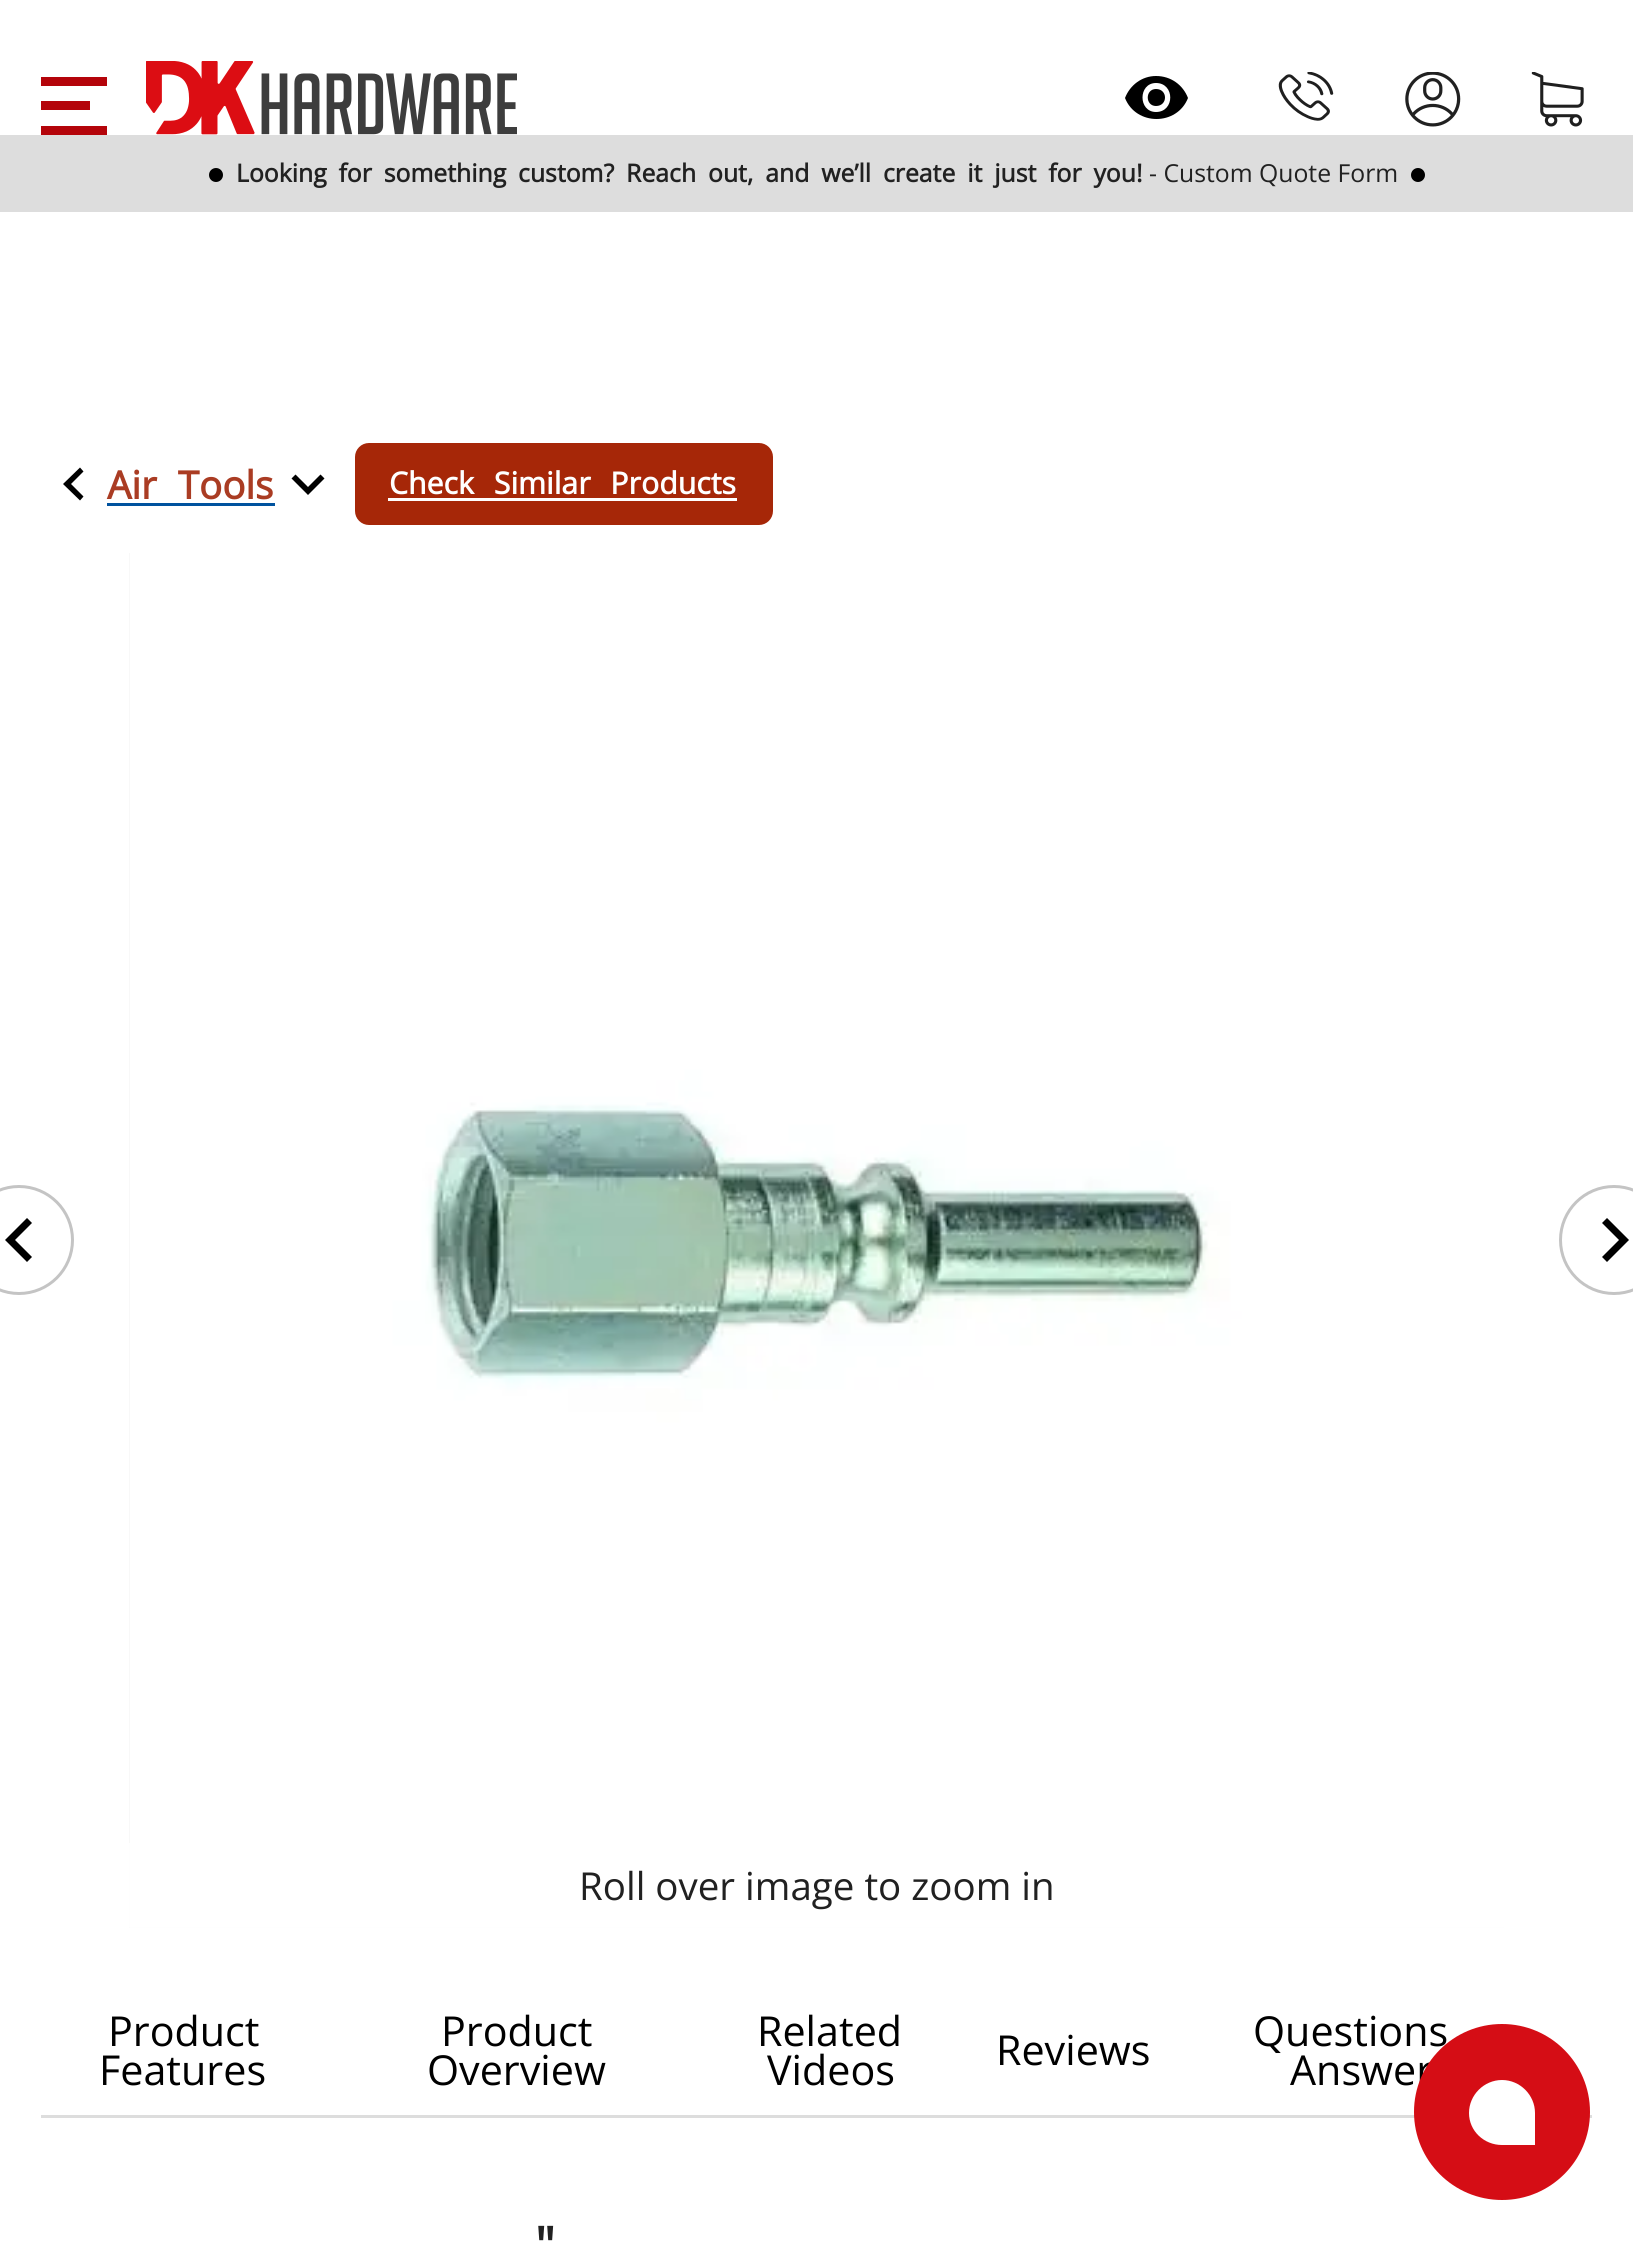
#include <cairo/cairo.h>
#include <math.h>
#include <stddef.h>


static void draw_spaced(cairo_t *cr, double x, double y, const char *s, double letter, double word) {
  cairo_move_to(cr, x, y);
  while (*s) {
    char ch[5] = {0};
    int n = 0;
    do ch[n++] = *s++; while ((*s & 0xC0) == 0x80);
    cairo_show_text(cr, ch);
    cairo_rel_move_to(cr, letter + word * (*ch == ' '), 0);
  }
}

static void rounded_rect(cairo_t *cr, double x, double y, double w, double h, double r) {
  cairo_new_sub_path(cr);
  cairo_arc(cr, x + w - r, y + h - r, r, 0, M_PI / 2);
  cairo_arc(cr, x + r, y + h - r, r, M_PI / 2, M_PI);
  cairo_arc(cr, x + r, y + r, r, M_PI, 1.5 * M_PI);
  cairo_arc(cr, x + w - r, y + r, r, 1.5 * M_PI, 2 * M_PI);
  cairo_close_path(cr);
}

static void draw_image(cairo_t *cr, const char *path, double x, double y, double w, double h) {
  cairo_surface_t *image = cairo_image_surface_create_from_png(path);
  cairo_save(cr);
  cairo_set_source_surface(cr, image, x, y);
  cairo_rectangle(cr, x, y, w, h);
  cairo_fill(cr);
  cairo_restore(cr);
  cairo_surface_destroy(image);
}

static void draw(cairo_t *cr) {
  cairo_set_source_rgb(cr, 1, 1, 1);
  cairo_paint(cr);
  cairo_set_source_rgb(cr, 180 / 255.0, 4 / 255.0, 10 / 255.0);
  cairo_rectangle(cr, 41, 77, 66, 9);
  cairo_fill(cr);
  cairo_rectangle(cr, 41, 101, 49, 9);
  cairo_fill(cr);
  cairo_rectangle(cr, 41, 126, 66, 9);
  cairo_fill(cr);
  draw_image(cr, "images/1.png", 146, 61, 371, 74);
  cairo_set_source_rgb(cr, 0, 0, 0);
  cairo_set_fill_rule(cr, CAIRO_FILL_RULE_EVEN_ODD);
  cairo_new_path(cr);
  cairo_move_to(cr, 1156, 89);
  cairo_curve_to(cr, 1145, 89, 1145, 106, 1156, 106);
  cairo_curve_to(cr, 1168, 106, 1168, 89, 1156, 89);
  cairo_move_to(cr, 1156, 112);
  cairo_curve_to(cr, 1138, 112, 1138, 83, 1156, 83);
  cairo_curve_to(cr, 1175, 83, 1175, 112, 1156, 112);
  cairo_move_to(cr, 1156, 76);
  cairo_curve_to(cr, 1142, 76, 1130, 85, 1125, 98);
  cairo_curve_to(cr, 1136, 126, 1177, 126, 1188, 98);
  cairo_curve_to(cr, 1183, 85, 1171, 76, 1156, 76);
  cairo_close_path(cr);
  cairo_fill(cr);
  draw_image(cr, "images/2.png", 1278, 72, 56, 49);
  draw_image(cr, "images/3.png", 1405, 72, 56, 55);
  draw_image(cr, "images/4.png", 1531, 72, 53, 55);
  cairo_set_source_rgb(cr, 221 / 255.0, 221 / 255.0, 221 / 255.0);
  cairo_rectangle(cr, 0, 135, 1633, 77);
  cairo_fill(cr);
  cairo_set_source_rgb(cr, 0, 0, 0);
  cairo_arc(cr, 216, 175, 7, 0, 2 * M_PI);
  cairo_fill(cr);
  cairo_arc(cr, 1418, 175, 7, 0, 2 * M_PI);
  cairo_fill(cr);
  cairo_new_path(cr);
  cairo_move_to(cr, 83.5, 496.5);
  cairo_line_to(cr, 71, 484);
  cairo_line_to(cr, 83.5, 471.5);
  cairo_line_to(cr, 80, 467.5);
  cairo_line_to(cr, 63, 484);
  cairo_line_to(cr, 80, 500.5);
  cairo_close_path(cr);
  cairo_fill(cr);
  cairo_set_source_rgb(cr, 0, 82 / 255.0, 158 / 255.0);
  cairo_rectangle(cr, 107, 503, 168, 3);
  cairo_fill(cr);
  cairo_set_source_rgb(cr, 0, 0, 0);
  cairo_new_path(cr);
  cairo_move_to(cr, 295.5, 474.5);
  cairo_line_to(cr, 308, 487);
  cairo_line_to(cr, 320.5, 474.5);
  cairo_line_to(cr, 324.5, 478.5);
  cairo_line_to(cr, 308, 495);
  cairo_line_to(cr, 291.5, 478.5);
  cairo_close_path(cr);
  cairo_fill(cr);
  cairo_set_source_rgb(cr, 166 / 255.0, 39 / 255.0, 8 / 255.0);
  rounded_rect(cr, 355, 443, 418, 82, 14);
  cairo_fill(cr);
  cairo_set_source_rgb(cr, 1, 1, 1);
  cairo_rectangle(cr, 388, 498, 349, 3);
  cairo_fill(cr);
  cairo_arc(cr, 19, 1240, 53.5, 0, 2 * M_PI);
  cairo_set_source_rgb(cr, 196 / 255.0, 196 / 255.0, 196 / 255.0);
  cairo_set_line_width(cr, 3);
  cairo_stroke(cr);
  cairo_set_source_rgb(cr, 0, 0, 0);
  cairo_new_path(cr);
  cairo_move_to(cr, 32, 1257);
  cairo_line_to(cr, 15, 1240);
  cairo_line_to(cr, 32, 1223);
  cairo_line_to(cr, 27, 1218);
  cairo_line_to(cr, 5, 1240);
  cairo_line_to(cr, 27, 1262);
  cairo_close_path(cr);
  cairo_fill(cr);
  cairo_set_source_rgb(cr, 225 / 255.0, 225 / 255.0, 225 / 255.0);
  cairo_rectangle(cr, 129, 553, 1375, 1375);
  cairo_fill(cr);
  cairo_arc(cr, 1614, 1240, 53.5, 0, 2 * M_PI);
  cairo_set_source_rgb(cr, 196 / 255.0, 196 / 255.0, 196 / 255.0);
  cairo_stroke(cr);
  cairo_set_source_rgb(cr, 0, 0, 0);
  cairo_new_path(cr);
  cairo_move_to(cr, 1602, 1257);
  cairo_line_to(cr, 1619, 1240);
  cairo_line_to(cr, 1602, 1223);
  cairo_line_to(cr, 1607, 1218);
  cairo_line_to(cr, 1629, 1240);
  cairo_line_to(cr, 1607, 1262);
  cairo_close_path(cr);
  cairo_fill(cr);
  draw_image(cr, "images/5.png", 129, 553, 1375, 1375);
  cairo_set_source_rgba(cr, 1, 1, 1, 0.8);
  cairo_rectangle(cr, 129, 1843, 1375, 85);
  cairo_fill(cr);
  cairo_set_source_rgb(cr, 221 / 255.0, 221 / 255.0, 221 / 255.0);
  cairo_rectangle(cr, 41, 2115, 1551, 3);
  cairo_fill(cr);
  cairo_select_font_face(cr, "Open Sans", CAIRO_FONT_SLANT_NORMAL, CAIRO_FONT_WEIGHT_BOLD);
  cairo_set_font_size(cr, 24.75);
  cairo_set_source_rgb(cr, 33 / 255.0, 33 / 255.0, 33 / 255.0);
  draw_spaced(cr, 236, 182, "Looking for something custom? Reach out, and we’ll create it just for you!", 0, 5.5);
  cairo_select_font_face(cr, "Open Sans", CAIRO_FONT_SLANT_NORMAL, CAIRO_FONT_WEIGHT_NORMAL);
  cairo_move_to(cr, 1149, 182);
  cairo_show_text(cr, "- Custom Quote Form");
  cairo_select_font_face(cr, "Open Sans", CAIRO_FONT_SLANT_NORMAL, CAIRO_FONT_WEIGHT_BOLD);
  cairo_set_font_size(cr, 38.5);
  cairo_set_source_rgb(cr, 170 / 255.0, 60 / 255.0, 35 / 255.0);
  draw_spaced(cr, 107, 499, "Air Tools", 0, 11);
  cairo_set_font_size(cr, 30.25);
  cairo_set_source_rgb(cr, 1, 1, 1);
  draw_spaced(cr, 389, 494, "Check Similar Products", 0, 12);
  cairo_select_font_face(cr, "Open Sans", CAIRO_FONT_SLANT_NORMAL, CAIRO_FONT_WEIGHT_NORMAL);
  cairo_set_font_size(cr, 38.5);
  cairo_set_source_rgb(cr, 33 / 255.0, 33 / 255.0, 33 / 255.0);
  cairo_move_to(cr, 579, 1900);
  cairo_show_text(cr, "Roll over image to zoom in");
  cairo_set_font_size(cr, 41.25);
  cairo_set_source_rgb(cr, 0, 0, 0);
  cairo_move_to(cr, 108, 2046);
  cairo_show_text(cr, "Product");
  cairo_move_to(cr, 99, 2085);
  cairo_show_text(cr, "Features");
  cairo_move_to(cr, 441, 2046);
  cairo_show_text(cr, "Product");
  cairo_move_to(cr, 427, 2085);
  cairo_show_text(cr, "Overview");
  cairo_move_to(cr, 757, 2046);
  cairo_show_text(cr, "Related");
  cairo_move_to(cr, 767, 2085);
  cairo_show_text(cr, "Videos");
  cairo_move_to(cr, 996, 2065);
  cairo_show_text(cr, "Reviews");
  draw_spaced(cr, 1253, 2046, "Questions", 0, 4);
  cairo_move_to(cr, 1290, 2085);
  cairo_show_text(cr, "Answer");
  cairo_select_font_face(cr, "Open Sans", CAIRO_FONT_SLANT_NORMAL, CAIRO_FONT_WEIGHT_BOLD);
  cairo_set_font_size(cr, 50);
  cairo_set_source_rgb(cr, 33 / 255.0, 33 / 255.0, 33 / 255.0);
  draw_spaced(cr, 535, 2263, "\"", 0, 10);
  cairo_set_source_rgb(cr, 213 / 255.0, 13 / 255.0, 21 / 255.0);
  cairo_new_path(cr);
  cairo_arc(cr, 1502, 2112, 88, 0, 2 * M_PI);
  cairo_fill(cr);
  cairo_set_source_rgb(cr, 1, 1, 1);
  cairo_set_fill_rule(cr, CAIRO_FILL_RULE_WINDING);
  cairo_new_path(cr);
  cairo_move_to(cr, 1535, 2145);
  cairo_line_to(cr, 1502, 2145);
  cairo_curve_to(cr, 1484, 2145, 1469, 2131, 1469, 2113);
  cairo_curve_to(cr, 1469, 2095, 1484, 2080, 1502, 2080);
  cairo_curve_to(cr, 1520, 2080, 1535, 2095, 1535, 2113);
  cairo_close_path(cr);
  cairo_fill(cr);
}

int main(void) {
  cairo_surface_t *surface = cairo_image_surface_create(CAIRO_FORMAT_RGB24, 1633, 2244);
  cairo_t *cr = cairo_create(surface);
  cairo_font_options_t *options = cairo_font_options_create();
  cairo_font_options_set_hint_metrics(options, CAIRO_HINT_METRICS_OFF);
  cairo_font_options_set_hint_style(options, CAIRO_HINT_STYLE_NONE);
  cairo_set_font_options(cr, options);
  cairo_set_miter_limit(cr, 4);
  draw(cr);
  cairo_surface_write_to_png(surface, "out.png");
  cairo_font_options_destroy(options);
  cairo_destroy(cr);
  cairo_surface_destroy(surface);
  return 0;
}
